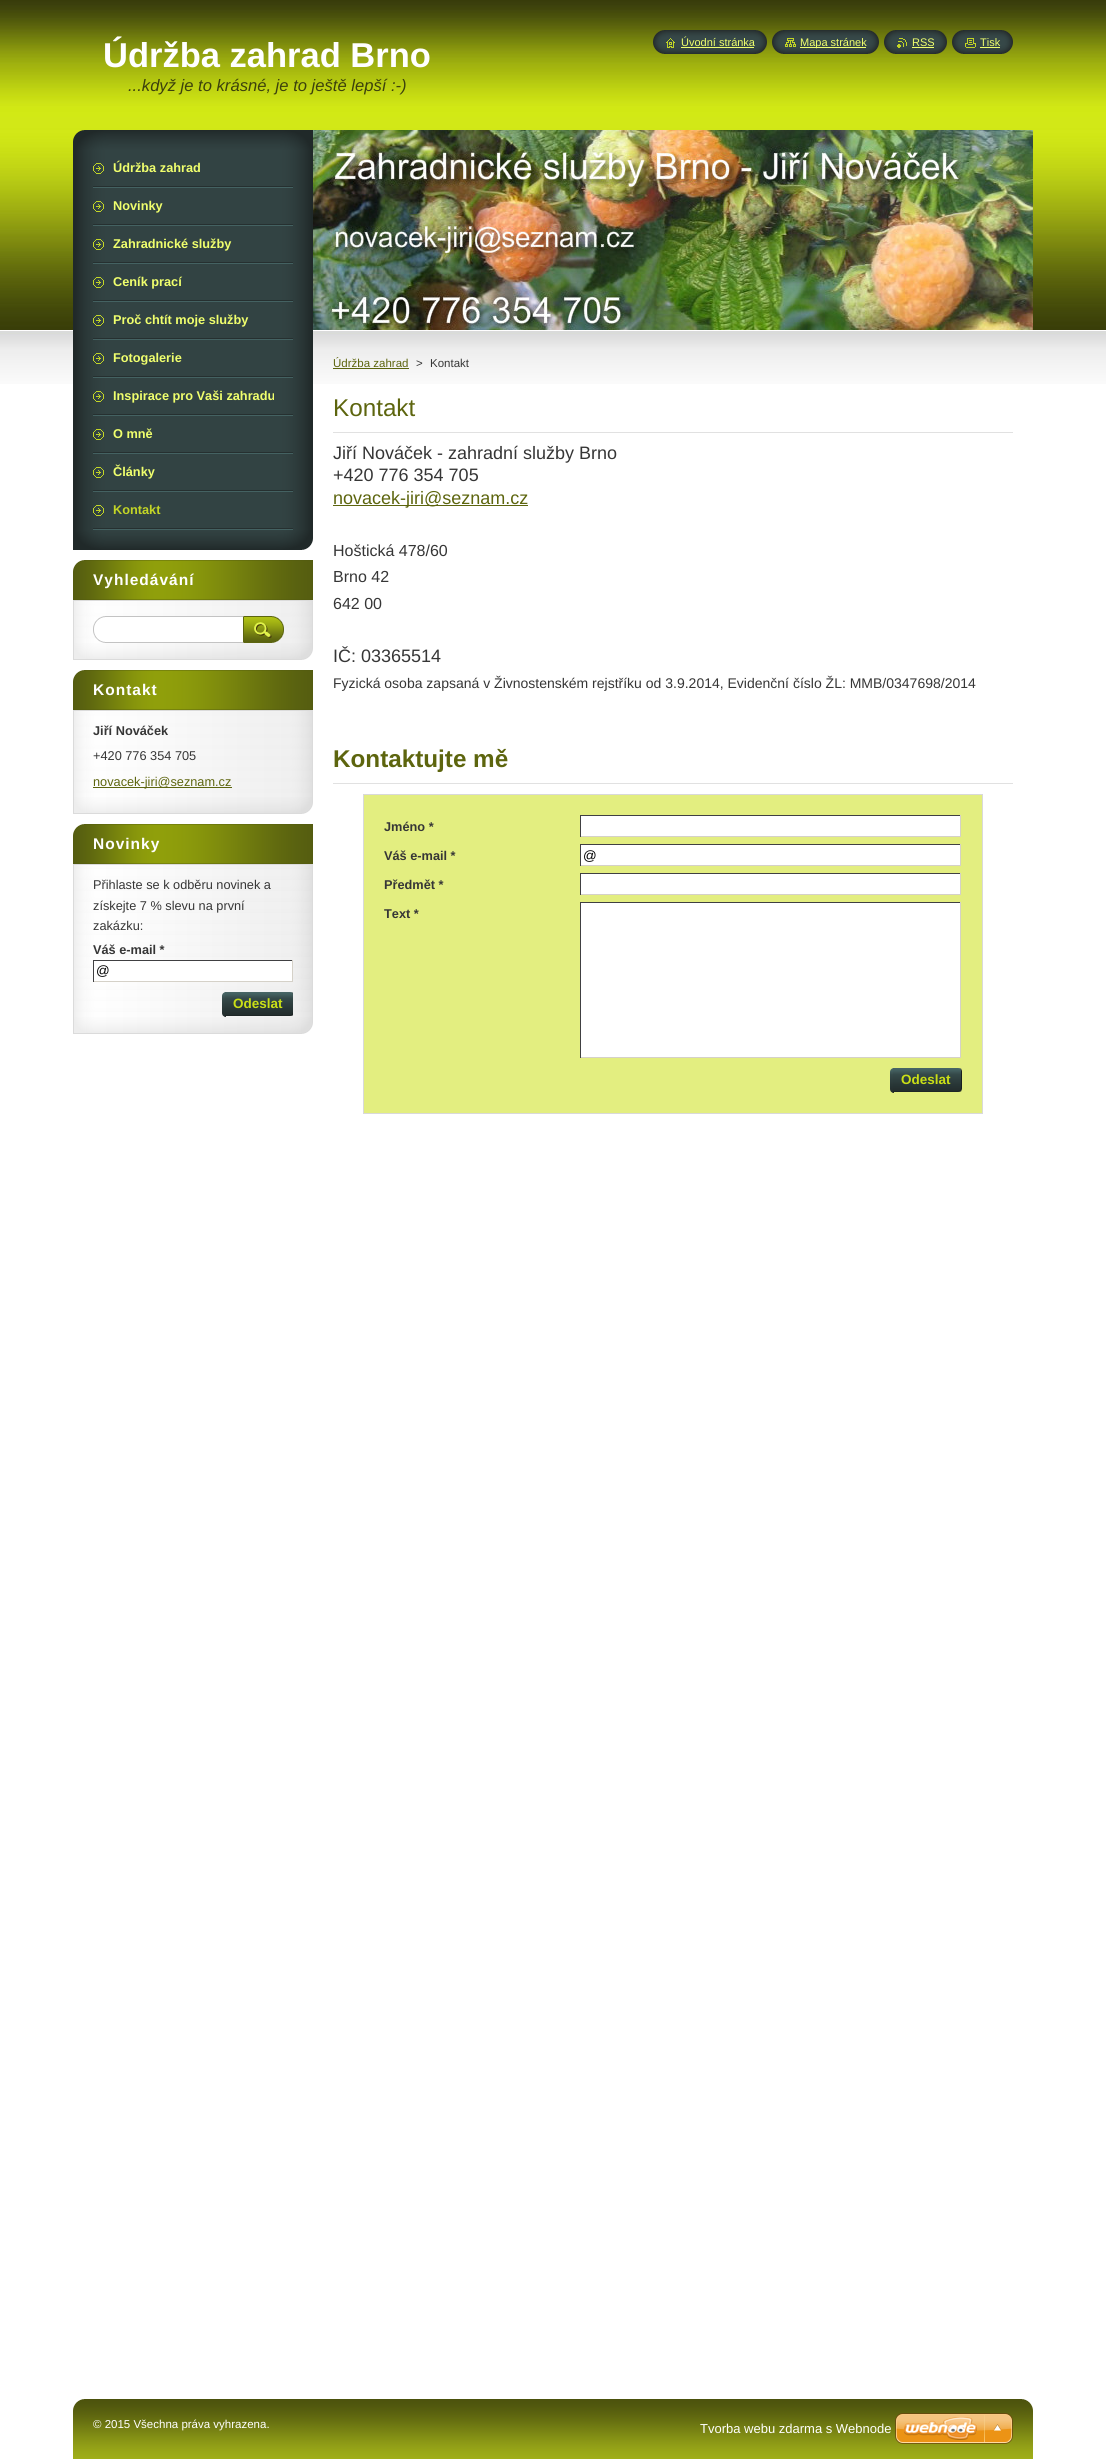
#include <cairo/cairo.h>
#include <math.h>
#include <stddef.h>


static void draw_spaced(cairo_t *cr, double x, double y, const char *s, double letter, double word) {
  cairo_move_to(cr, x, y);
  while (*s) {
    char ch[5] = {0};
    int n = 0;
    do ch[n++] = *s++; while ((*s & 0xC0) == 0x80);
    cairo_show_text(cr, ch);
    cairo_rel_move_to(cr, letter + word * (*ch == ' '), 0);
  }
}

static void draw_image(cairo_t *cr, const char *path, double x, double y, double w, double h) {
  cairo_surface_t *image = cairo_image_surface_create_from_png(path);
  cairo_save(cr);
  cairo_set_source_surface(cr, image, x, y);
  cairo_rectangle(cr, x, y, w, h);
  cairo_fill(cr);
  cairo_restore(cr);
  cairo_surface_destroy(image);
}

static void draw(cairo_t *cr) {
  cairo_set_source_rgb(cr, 1, 1, 1);
  cairo_paint(cr);
  draw_image(cr, "images/1.png", 0, 0, 1106, 384);
  draw_image(cr, "images/2.png", 653, 30, 13, 24);
  draw_image(cr, "images/3.png", 666, 30, 101, 24);
  draw_image(cr, "images/4.png", 666, 38, 9, 10);
  cairo_set_source_rgb(cr, 240 / 255.0, 1, 109 / 255.0);
  cairo_rectangle(cr, 681, 47, 73, 1);
  cairo_fill(cr);
  draw_image(cr, "images/2.png", 772, 30, 13, 24);
  draw_image(cr, "images/5.png", 785, 30, 94, 24);
  draw_image(cr, "images/6.png", 785, 38, 11, 9);
  cairo_rectangle(cr, 800, 47, 66, 1);
  cairo_fill(cr);
  draw_image(cr, "images/2.png", 884, 30, 13, 24);
  draw_image(cr, "images/7.png", 897, 30, 50, 24);
  draw_image(cr, "images/8.png", 897, 38, 10, 10);
  cairo_rectangle(cr, 912, 47, 22, 1);
  cairo_fill(cr);
  draw_image(cr, "images/2.png", 952, 30, 13, 24);
  draw_image(cr, "images/9.png", 965, 30, 48, 24);
  draw_image(cr, "images/10.png", 965, 38, 11, 10);
  cairo_rectangle(cr, 980, 47, 20, 1);
  cairo_fill(cr);
  draw_image(cr, "images/11.png", 73, 130, 240, 20);
  draw_image(cr, "images/12.png", 73, 530, 240, 20);
  draw_image(cr, "images/13.png", 73, 150, 240, 380);
  draw_image(cr, "images/14.png", 93, 186, 200, 2);
  draw_image(cr, "images/15.png", 93, 163, 11, 11);
  draw_image(cr, "images/14.png", 93, 224, 200, 2);
  draw_image(cr, "images/15.png", 93, 201, 11, 11);
  draw_image(cr, "images/14.png", 93, 262, 200, 2);
  draw_image(cr, "images/15.png", 93, 239, 11, 11);
  draw_image(cr, "images/14.png", 93, 300, 200, 2);
  draw_image(cr, "images/15.png", 93, 277, 11, 11);
  draw_image(cr, "images/14.png", 93, 338, 200, 2);
  draw_image(cr, "images/15.png", 93, 315, 11, 11);
  draw_image(cr, "images/14.png", 93, 376, 200, 2);
  draw_image(cr, "images/15.png", 93, 353, 11, 11);
  draw_image(cr, "images/14.png", 93, 414, 200, 2);
  draw_image(cr, "images/15.png", 93, 391, 11, 11);
  draw_image(cr, "images/14.png", 93, 452, 200, 2);
  draw_image(cr, "images/15.png", 93, 429, 11, 11);
  draw_image(cr, "images/14.png", 93, 490, 200, 2);
  draw_image(cr, "images/15.png", 93, 467, 11, 11);
  draw_image(cr, "images/14.png", 93, 528, 200, 2);
  draw_image(cr, "images/15.png", 93, 505, 11, 11);
  draw_image(cr, "images/16.png", 73, 643, 240, 17);
  draw_image(cr, "images/17.png", 73, 560, 240, 40);
  draw_image(cr, "images/18.png", 73, 601, 240, 42);
  cairo_set_source_rgb(cr, 219 / 255.0, 219 / 255.0, 219 / 255.0);
  cairo_rectangle(cr, 73, 600, 240, 1);
  cairo_fill(cr);
  draw_image(cr, "images/19.png", 93, 616, 150, 27);
  draw_image(cr, "images/20.png", 243, 616, 41, 27);
  draw_image(cr, "images/16.png", 73, 797, 240, 17);
  draw_image(cr, "images/17.png", 73, 670, 240, 40);
  draw_image(cr, "images/21.png", 73, 711, 240, 86);
  cairo_rectangle(cr, 73, 710, 240, 1);
  cairo_fill(cr);
  cairo_set_source_rgb(cr, 93 / 255.0, 101 / 255.0, 14 / 255.0);
  cairo_rectangle(cr, 93, 787, 139, 1);
  cairo_fill(cr);
  draw_image(cr, "images/16.png", 73, 1017, 240, 17);
  draw_image(cr, "images/17.png", 73, 824, 240, 40);
  draw_image(cr, "images/22.png", 73, 865, 240, 152);
  cairo_set_source_rgb(cr, 219 / 255.0, 219 / 255.0, 219 / 255.0);
  cairo_rectangle(cr, 73, 864, 240, 1);
  cairo_fill(cr);
  cairo_set_source_rgb(cr, 1, 1, 1);
  cairo_rectangle(cr, 94, 961, 198, 20);
  cairo_fill(cr);
  cairo_set_source_rgb(cr, 64 / 255.0, 64 / 255.0, 66 / 255.0);
  cairo_rectangle(cr, 93, 960, 200, 1);
  cairo_fill(cr);
  cairo_set_source_rgb(cr, 213 / 255.0, 209 / 255.0, 200 / 255.0);
  cairo_rectangle(cr, 292, 960, 1, 22);
  cairo_fill(cr);
  cairo_rectangle(cr, 93, 981, 200, 1);
  cairo_fill(cr);
  cairo_set_source_rgb(cr, 64 / 255.0, 64 / 255.0, 66 / 255.0);
  cairo_rectangle(cr, 93, 960, 1, 22);
  cairo_fill(cr);
  draw_image(cr, "images/23.png", 222, 992, 4, 25);
  draw_image(cr, "images/24.png", 225, 992, 68, 24);
  draw_image(cr, "images/25.png", 313, 130, 720, 200);
  cairo_set_source_rgb(cr, 93 / 255.0, 101 / 255.0, 14 / 255.0);
  cairo_rectangle(cr, 333, 368, 76, 1);
  cairo_fill(cr);
  cairo_set_source_rgb(cr, 225 / 255.0, 225 / 255.0, 225 / 255.0);
  cairo_rectangle(cr, 333, 432, 680, 1);
  cairo_fill(cr);
  cairo_set_source_rgb(cr, 93 / 255.0, 101 / 255.0, 14 / 255.0);
  cairo_rectangle(cr, 333, 505, 195, 1);
  cairo_fill(cr);
  cairo_set_source_rgb(cr, 225 / 255.0, 225 / 255.0, 225 / 255.0);
  cairo_rectangle(cr, 333, 783, 680, 1);
  cairo_fill(cr);
  cairo_set_source_rgb(cr, 227 / 255.0, 238 / 255.0, 128 / 255.0);
  cairo_rectangle(cr, 363.5, 794.5, 619, 319);
  cairo_fill_preserve(cr);
  cairo_set_source_rgb(cr, 217 / 255.0, 217 / 255.0, 217 / 255.0);
  cairo_set_line_width(cr, 1);
  cairo_stroke(cr);
  cairo_set_source_rgb(cr, 1, 1, 1);
  cairo_rectangle(cr, 581, 816, 379, 20);
  cairo_fill(cr);
  cairo_set_source_rgb(cr, 64 / 255.0, 64 / 255.0, 66 / 255.0);
  cairo_rectangle(cr, 580, 815, 381, 1);
  cairo_fill(cr);
  cairo_set_source_rgb(cr, 213 / 255.0, 209 / 255.0, 200 / 255.0);
  cairo_rectangle(cr, 960, 815, 1, 22);
  cairo_fill(cr);
  cairo_rectangle(cr, 580, 836, 381, 1);
  cairo_fill(cr);
  cairo_set_source_rgb(cr, 64 / 255.0, 64 / 255.0, 66 / 255.0);
  cairo_rectangle(cr, 580, 815, 1, 22);
  cairo_fill(cr);
  cairo_set_source_rgb(cr, 1, 1, 1);
  cairo_rectangle(cr, 581, 845, 379, 20);
  cairo_fill(cr);
  cairo_set_source_rgb(cr, 64 / 255.0, 64 / 255.0, 66 / 255.0);
  cairo_rectangle(cr, 580, 844, 381, 1);
  cairo_fill(cr);
  cairo_set_source_rgb(cr, 213 / 255.0, 209 / 255.0, 200 / 255.0);
  cairo_rectangle(cr, 960, 844, 1, 22);
  cairo_fill(cr);
  cairo_rectangle(cr, 580, 865, 381, 1);
  cairo_fill(cr);
  cairo_set_source_rgb(cr, 64 / 255.0, 64 / 255.0, 66 / 255.0);
  cairo_rectangle(cr, 580, 844, 1, 22);
  cairo_fill(cr);
  cairo_set_source_rgb(cr, 1, 1, 1);
  cairo_rectangle(cr, 581, 874, 379, 20);
  cairo_fill(cr);
  cairo_set_source_rgb(cr, 64 / 255.0, 64 / 255.0, 66 / 255.0);
  cairo_rectangle(cr, 580, 873, 381, 1);
  cairo_fill(cr);
  cairo_set_source_rgb(cr, 213 / 255.0, 209 / 255.0, 200 / 255.0);
  cairo_rectangle(cr, 960, 873, 1, 22);
  cairo_fill(cr);
  cairo_rectangle(cr, 580, 894, 381, 1);
  cairo_fill(cr);
  cairo_set_source_rgb(cr, 64 / 255.0, 64 / 255.0, 66 / 255.0);
  cairo_rectangle(cr, 580, 873, 1, 22);
  cairo_fill(cr);
  cairo_set_source_rgb(cr, 1, 1, 1);
  cairo_rectangle(cr, 581, 903, 379, 154);
  cairo_fill(cr);
  cairo_set_source_rgb(cr, 64 / 255.0, 64 / 255.0, 66 / 255.0);
  cairo_rectangle(cr, 580, 902, 381, 1);
  cairo_fill(cr);
  cairo_set_source_rgb(cr, 213 / 255.0, 209 / 255.0, 200 / 255.0);
  cairo_rectangle(cr, 960, 902, 1, 156);
  cairo_fill(cr);
  cairo_rectangle(cr, 580, 1057, 381, 1);
  cairo_fill(cr);
  cairo_set_source_rgb(cr, 64 / 255.0, 64 / 255.0, 66 / 255.0);
  cairo_rectangle(cr, 580, 902, 1, 156);
  cairo_fill(cr);
  draw_image(cr, "images/26.png", 890, 1068, 4, 25);
  draw_image(cr, "images/27.png", 893, 1068, 69, 24);
  draw_image(cr, "images/28.png", 73, 2399, 960, 60);
  draw_image(cr, "images/29.png", 895, 2413, 118, 31);
  cairo_select_font_face(cr, "Liberation Sans", CAIRO_FONT_SLANT_NORMAL, CAIRO_FONT_WEIGHT_BOLD);
  cairo_set_font_size(cr, 34.5);
  cairo_set_source_rgb(cr, 1, 1, 1);
  cairo_move_to(cr, 103, 67);
  cairo_show_text(cr, "Údržba zahrad Brno");
  cairo_select_font_face(cr, "Liberation Sans", CAIRO_FONT_SLANT_ITALIC, CAIRO_FONT_WEIGHT_NORMAL);
  cairo_set_font_size(cr, 16.6);
  cairo_set_source_rgb(cr, 60 / 255.0, 65 / 255.0, 12 / 255.0);
  cairo_move_to(cr, 128, 91);
  cairo_show_text(cr, "...když je to krásné, je to ještě lepší :-)");
  cairo_select_font_face(cr, "Liberation Sans", CAIRO_FONT_SLANT_NORMAL, CAIRO_FONT_WEIGHT_NORMAL);
  cairo_set_font_size(cr, 11);
  cairo_set_source_rgb(cr, 240 / 255.0, 1, 109 / 255.0);
  cairo_move_to(cr, 681, 46);
  cairo_show_text(cr, "Úvodní stránka");
  cairo_move_to(cr, 800, 46);
  cairo_show_text(cr, "Mapa stránek");
  cairo_move_to(cr, 912, 46);
  cairo_show_text(cr, "RSS");
  cairo_move_to(cr, 980, 46);
  cairo_show_text(cr, "Tisk");
  cairo_select_font_face(cr, "Liberation Sans", CAIRO_FONT_SLANT_NORMAL, CAIRO_FONT_WEIGHT_BOLD);
  cairo_set_font_size(cr, 12.75);
  cairo_move_to(cr, 113, 172);
  cairo_show_text(cr, "Údržba zahrad");
  cairo_move_to(cr, 113, 210);
  cairo_show_text(cr, "Novinky");
  cairo_move_to(cr, 113, 248);
  cairo_show_text(cr, "Zahradnické služby");
  cairo_move_to(cr, 113, 286);
  cairo_show_text(cr, "Ceník prací");
  cairo_move_to(cr, 113, 324);
  cairo_show_text(cr, "Proč chtít moje služby");
  cairo_move_to(cr, 113, 362);
  cairo_show_text(cr, "Fotogalerie");
  cairo_move_to(cr, 113, 400);
  cairo_show_text(cr, "Inspirace pro Vaši zahradu");
  cairo_move_to(cr, 113, 438);
  cairo_show_text(cr, "O mně");
  cairo_move_to(cr, 113, 476);
  cairo_show_text(cr, "Články");
  cairo_set_source_rgb(cr, 195 / 255.0, 213 / 255.0, 38 / 255.0);
  cairo_move_to(cr, 113, 514);
  cairo_show_text(cr, "Kontakt");
  cairo_set_font_size(cr, 15.5);
  cairo_set_source_rgb(cr, 1, 1, 1);
  draw_spaced(cr, 93, 585, "Vyhledávání", 1, 0);
  draw_spaced(cr, 93, 695, "Kontakt", 1, 0);
  cairo_set_font_size(cr, 12.75);
  cairo_set_source_rgb(cr, 54 / 255.0, 54 / 255.0, 54 / 255.0);
  cairo_move_to(cr, 93, 735);
  cairo_show_text(cr, "Jiří Nováček");
  cairo_select_font_face(cr, "Liberation Sans", CAIRO_FONT_SLANT_NORMAL, CAIRO_FONT_WEIGHT_NORMAL);
  cairo_move_to(cr, 93, 760);
  cairo_show_text(cr, "+420 776 354 705");
  cairo_set_source_rgb(cr, 93 / 255.0, 101 / 255.0, 14 / 255.0);
  cairo_move_to(cr, 93, 786);
  cairo_show_text(cr, "novacek-jiri@seznam.cz");
  cairo_select_font_face(cr, "Liberation Sans", CAIRO_FONT_SLANT_NORMAL, CAIRO_FONT_WEIGHT_BOLD);
  cairo_set_font_size(cr, 15.5);
  cairo_set_source_rgb(cr, 1, 1, 1);
  draw_spaced(cr, 93, 849, "Novinky", 1, 0);
  cairo_select_font_face(cr, "Liberation Sans", CAIRO_FONT_SLANT_NORMAL, CAIRO_FONT_WEIGHT_NORMAL);
  cairo_set_font_size(cr, 12.75);
  cairo_set_source_rgb(cr, 54 / 255.0, 54 / 255.0, 54 / 255.0);
  cairo_move_to(cr, 93, 889);
  cairo_show_text(cr, "Přihlaste se k odběru novinek a");
  cairo_move_to(cr, 93, 910);
  cairo_show_text(cr, "získejte 7 % slevu na první");
  cairo_move_to(cr, 93, 930);
  cairo_show_text(cr, "zakázku:");
  cairo_select_font_face(cr, "Liberation Sans", CAIRO_FONT_SLANT_NORMAL, CAIRO_FONT_WEIGHT_BOLD);
  cairo_move_to(cr, 93, 954);
  cairo_show_text(cr, "Váš e-mail *");
  cairo_select_font_face(cr, "Liberation Sans", CAIRO_FONT_SLANT_NORMAL, CAIRO_FONT_WEIGHT_NORMAL);
  cairo_set_font_size(cr, 13.5);
  cairo_set_source_rgb(cr, 0, 0, 0);
  cairo_move_to(cr, 96, 975);
  cairo_show_text(cr, "@");
  cairo_select_font_face(cr, "Liberation Sans", CAIRO_FONT_SLANT_NORMAL, CAIRO_FONT_WEIGHT_BOLD);
  cairo_set_source_rgb(cr, 202 / 255.0, 223 / 255.0, 22 / 255.0);
  cairo_move_to(cr, 233, 1008);
  cairo_show_text(cr, "Odeslat");
  cairo_select_font_face(cr, "Liberation Sans", CAIRO_FONT_SLANT_NORMAL, CAIRO_FONT_WEIGHT_NORMAL);
  cairo_set_font_size(cr, 11.5);
  cairo_set_source_rgb(cr, 93 / 255.0, 101 / 255.0, 14 / 255.0);
  cairo_move_to(cr, 333, 367);
  cairo_show_text(cr, "Údržba zahrad");
  cairo_set_source_rgb(cr, 54 / 255.0, 54 / 255.0, 54 / 255.0);
  cairo_move_to(cr, 416, 367);
  cairo_show_text(cr, ">");
  cairo_move_to(cr, 430, 367);
  cairo_show_text(cr, "Kontakt");
  cairo_set_font_size(cr, 24.25);
  cairo_set_source_rgb(cr, 93 / 255.0, 101 / 255.0, 14 / 255.0);
  cairo_move_to(cr, 333, 416);
  cairo_show_text(cr, "Kontakt");
  cairo_set_font_size(cr, 18);
  cairo_set_source_rgb(cr, 54 / 255.0, 54 / 255.0, 54 / 255.0);
  cairo_move_to(cr, 333, 459);
  cairo_show_text(cr, "Jiří Nováček - zahradní služby Brno");
  cairo_move_to(cr, 333, 481);
  cairo_show_text(cr, "+420 776 354 705");
  cairo_set_source_rgb(cr, 93 / 255.0, 101 / 255.0, 14 / 255.0);
  cairo_move_to(cr, 333, 504);
  cairo_show_text(cr, "novacek-jiri@seznam.cz");
  cairo_set_font_size(cr, 16);
  cairo_set_source_rgb(cr, 54 / 255.0, 54 / 255.0, 54 / 255.0);
  cairo_move_to(cr, 333, 556);
  cairo_show_text(cr, "Hoštická 478/60");
  cairo_move_to(cr, 333, 582);
  cairo_show_text(cr, "Brno 42");
  cairo_move_to(cr, 333, 609);
  cairo_show_text(cr, "642 00");
  cairo_set_font_size(cr, 18);
  cairo_move_to(cr, 333, 662);
  cairo_show_text(cr, "IČ: 03365514");
  cairo_set_font_size(cr, 14);
  cairo_move_to(cr, 333, 688);
  cairo_show_text(cr, "Fyzická osoba zapsaná v Živnostenském rejstříku od 3.9.2014, Evidenční číslo ŽL: MMB/0347698/2014");
  cairo_select_font_face(cr, "Liberation Sans", CAIRO_FONT_SLANT_NORMAL, CAIRO_FONT_WEIGHT_BOLD);
  cairo_set_font_size(cr, 24.25);
  cairo_set_source_rgb(cr, 93 / 255.0, 101 / 255.0, 14 / 255.0);
  cairo_move_to(cr, 333, 767);
  cairo_show_text(cr, "Kontaktujte mě");
  cairo_set_font_size(cr, 12.75);
  cairo_set_source_rgb(cr, 54 / 255.0, 54 / 255.0, 54 / 255.0);
  cairo_move_to(cr, 384, 831);
  cairo_show_text(cr, "Jméno *");
  cairo_move_to(cr, 384, 860);
  cairo_show_text(cr, "Váš e-mail *");
  cairo_select_font_face(cr, "Liberation Sans", CAIRO_FONT_SLANT_NORMAL, CAIRO_FONT_WEIGHT_NORMAL);
  cairo_set_font_size(cr, 13.5);
  cairo_set_source_rgb(cr, 0, 0, 0);
  cairo_move_to(cr, 583, 860);
  cairo_show_text(cr, "@");
  cairo_select_font_face(cr, "Liberation Sans", CAIRO_FONT_SLANT_NORMAL, CAIRO_FONT_WEIGHT_BOLD);
  cairo_set_font_size(cr, 12.75);
  cairo_set_source_rgb(cr, 54 / 255.0, 54 / 255.0, 54 / 255.0);
  cairo_move_to(cr, 384, 889);
  cairo_show_text(cr, "Předmět *");
  cairo_move_to(cr, 384, 918);
  cairo_show_text(cr, "Text *");
  cairo_set_font_size(cr, 13.5);
  cairo_set_source_rgb(cr, 202 / 255.0, 223 / 255.0, 22 / 255.0);
  cairo_move_to(cr, 901, 1084);
  cairo_show_text(cr, "Odeslat");
  cairo_select_font_face(cr, "Liberation Sans", CAIRO_FONT_SLANT_NORMAL, CAIRO_FONT_WEIGHT_NORMAL);
  cairo_set_font_size(cr, 11.5);
  cairo_set_source_rgb(cr, 1, 1, 1);
  cairo_move_to(cr, 93, 2428);
  cairo_show_text(cr, "© 2015 Všechna práva vyhrazena.");
  cairo_set_font_size(cr, 13);
  cairo_move_to(cr, 700, 2433);
  cairo_show_text(cr, "Tvorba webu zdarma s Webnode");
}

int main(void) {
  cairo_surface_t *surface = cairo_image_surface_create(CAIRO_FORMAT_RGB24, 1106, 2459);
  cairo_t *cr = cairo_create(surface);
  cairo_font_options_t *options = cairo_font_options_create();
  cairo_font_options_set_hint_metrics(options, CAIRO_HINT_METRICS_OFF);
  cairo_font_options_set_hint_style(options, CAIRO_HINT_STYLE_NONE);
  cairo_set_font_options(cr, options);
  cairo_set_miter_limit(cr, 4);
  draw(cr);
  cairo_surface_write_to_png(surface, "out.png");
  cairo_font_options_destroy(options);
  cairo_destroy(cr);
  cairo_surface_destroy(surface);
  return 0;
}
